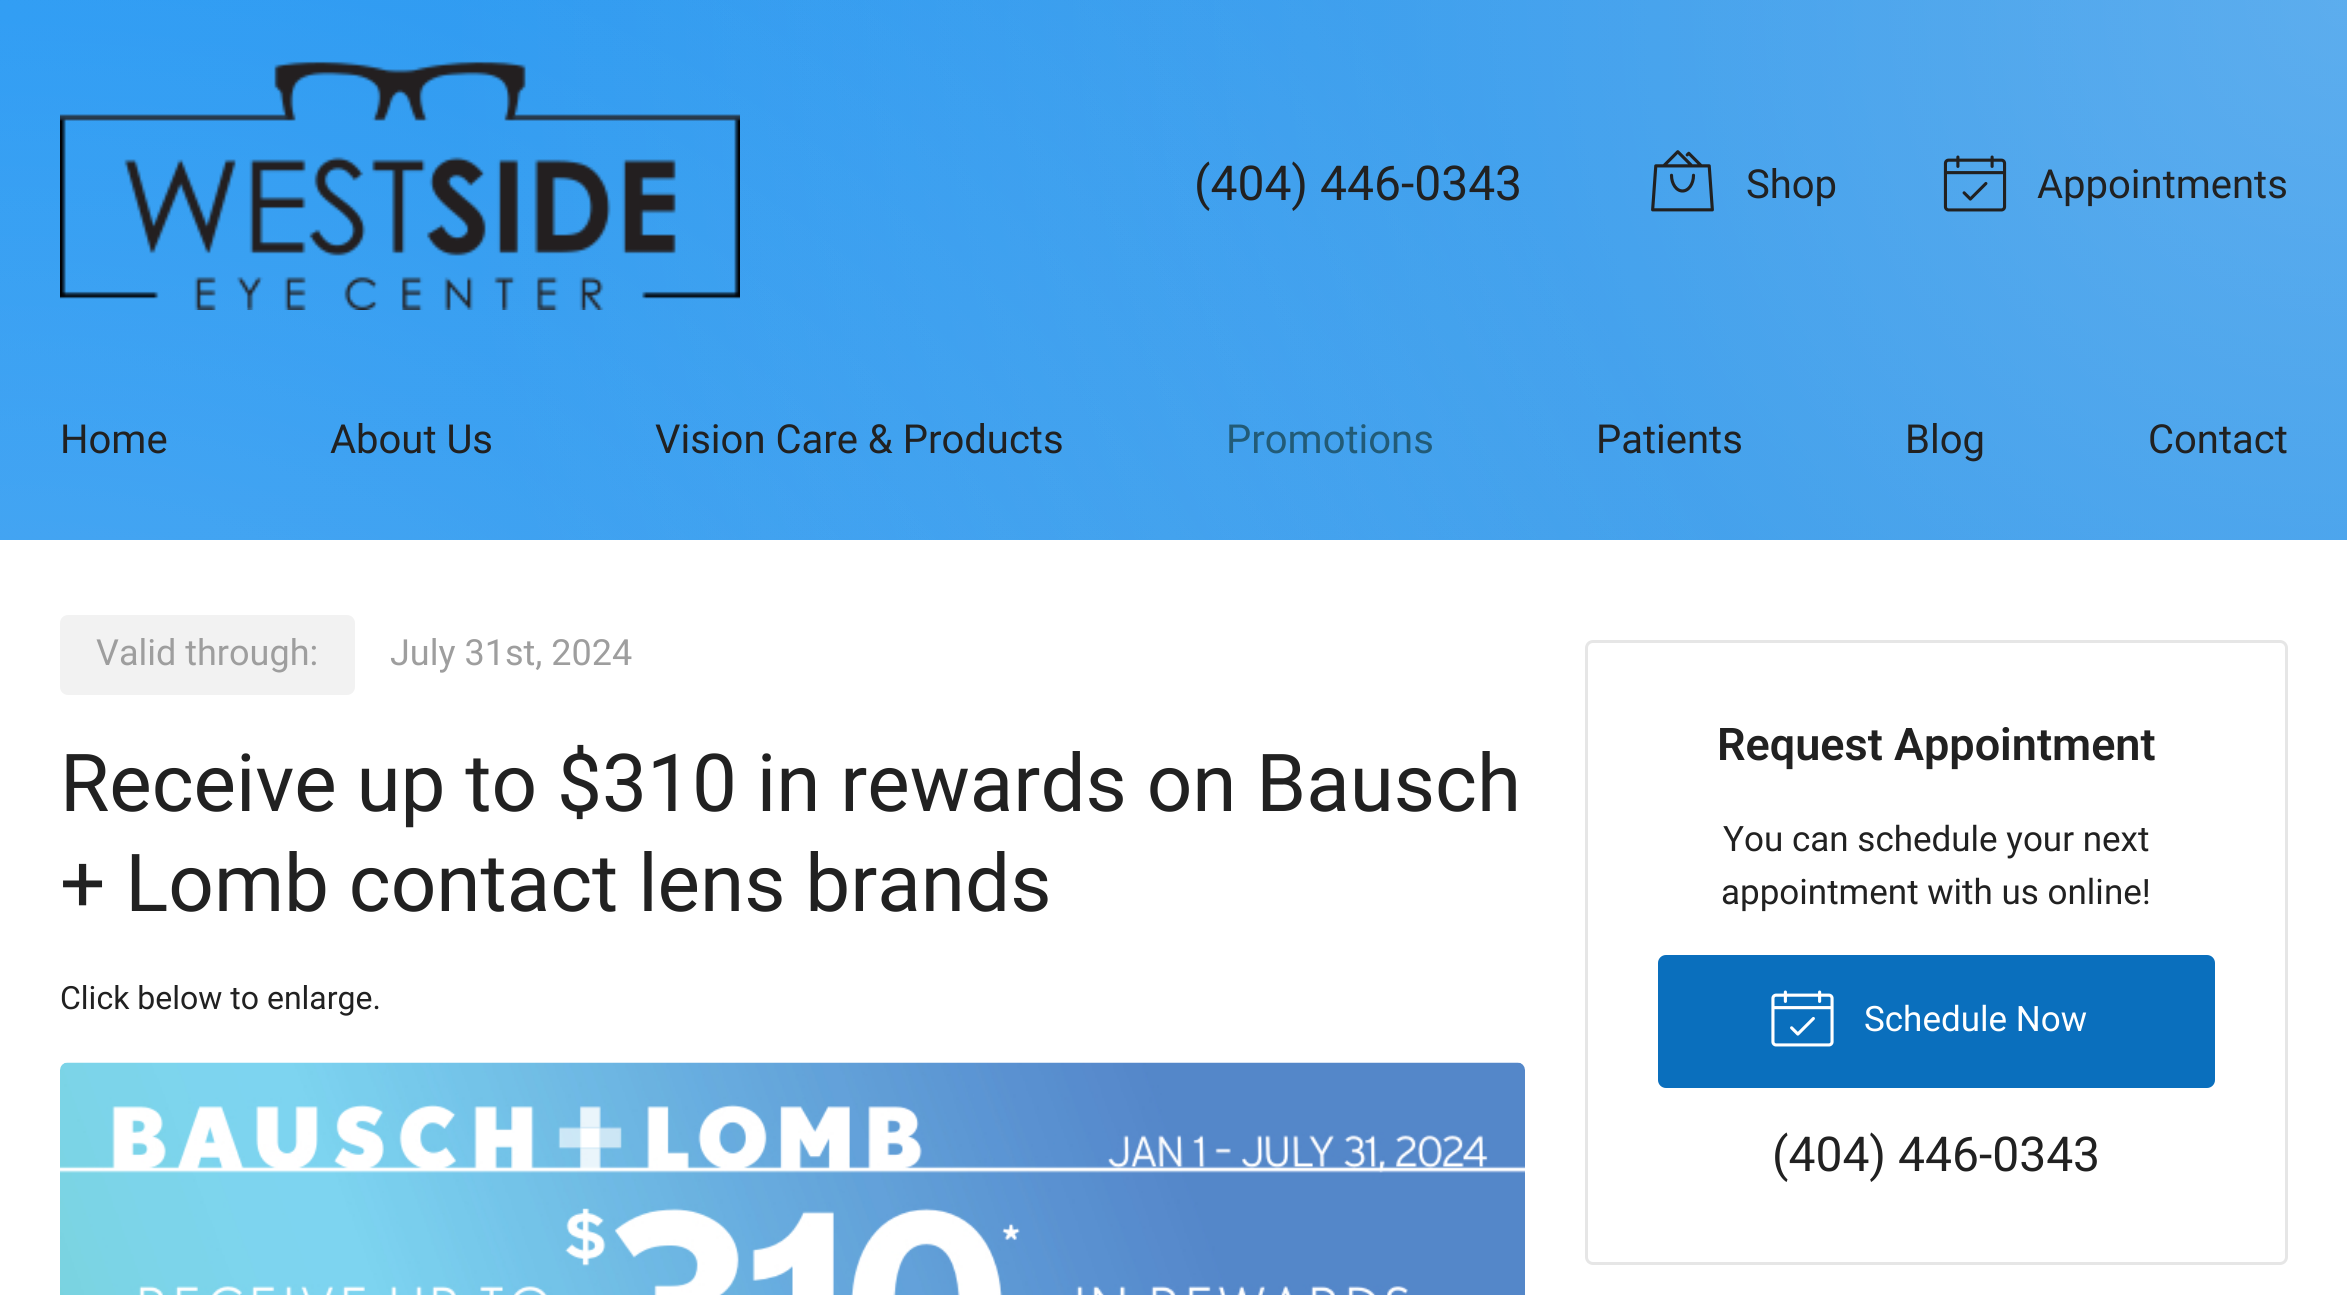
#include <cairo/cairo.h>
#include <math.h>
#include <stddef.h>


static void rounded_rect(cairo_t *cr, double x, double y, double w, double h, double r) {
  cairo_new_sub_path(cr);
  cairo_arc(cr, x + w - r, y + h - r, r, 0, M_PI / 2);
  cairo_arc(cr, x + r, y + h - r, r, M_PI / 2, M_PI);
  cairo_arc(cr, x + r, y + r, r, M_PI, 1.5 * M_PI);
  cairo_arc(cr, x + w - r, y + r, r, 1.5 * M_PI, 2 * M_PI);
  cairo_close_path(cr);
}

static void draw_image(cairo_t *cr, const char *path, double x, double y, double w, double h) {
  cairo_surface_t *image = cairo_image_surface_create_from_png(path);
  cairo_save(cr);
  cairo_set_source_surface(cr, image, x, y);
  cairo_rectangle(cr, x, y, w, h);
  cairo_fill(cr);
  cairo_restore(cr);
  cairo_surface_destroy(image);
}

static void draw(cairo_t *cr) {
  cairo_set_source_rgb(cr, 1, 1, 1);
  cairo_paint(cr);
  draw_image(cr, "images/1.png", 0, 0, 2347, 540);
  draw_image(cr, "images/2.png", 60, 61, 680, 249);
  draw_image(cr, "images/3.png", 1651, 150, 63, 62);
  draw_image(cr, "images/4.png", 1943, 155, 64, 57);
  cairo_set_source_rgb(cr, 242 / 255.0, 242 / 255.0, 242 / 255.0);
  rounded_rect(cr, 60, 615, 295, 80, 8);
  cairo_fill(cr);
  draw_image(cr, "images/5.png", 60, 1062, 1465, 233);
  rounded_rect(cr, 1586.5, 641.5, 700, 622, 6.5);
  cairo_set_source_rgb(cr, 230 / 255.0, 230 / 255.0, 230 / 255.0);
  cairo_set_line_width(cr, 3);
  cairo_stroke(cr);
  cairo_set_source_rgb(cr, 10 / 255.0, 111 / 255.0, 189 / 255.0);
  rounded_rect(cr, 1660.5, 957.5, 552, 128, 5.5);
  cairo_fill_preserve(cr);
  cairo_set_line_width(cr, 5);
  cairo_stroke(cr);
  draw_image(cr, "images/6.png", 1771, 990, 63, 57);
  cairo_select_font_face(cr, "Roboto", CAIRO_FONT_SLANT_NORMAL, CAIRO_FONT_WEIGHT_NORMAL);
  cairo_set_font_size(cr, 48);
  cairo_set_source_rgb(cr, 33 / 255.0, 33 / 255.0, 33 / 255.0);
  cairo_move_to(cr, 1194, 200);
  cairo_show_text(cr, "(404) 446-0343");
  cairo_set_font_size(cr, 40);
  cairo_move_to(cr, 1746, 198);
  cairo_show_text(cr, "Shop");
  cairo_move_to(cr, 2037, 198);
  cairo_show_text(cr, "Appointments");
  cairo_move_to(cr, 60, 453);
  cairo_show_text(cr, "Home");
  cairo_move_to(cr, 330, 453);
  cairo_show_text(cr, "About Us");
  cairo_move_to(cr, 655, 453);
  cairo_show_text(cr, "Vision Care & Products");
  cairo_set_source_rgb(cr, 34 / 255.0, 91 / 255.0, 119 / 255.0);
  cairo_move_to(cr, 1226, 453);
  cairo_show_text(cr, "Promotions");
  cairo_set_source_rgb(cr, 33 / 255.0, 33 / 255.0, 33 / 255.0);
  cairo_move_to(cr, 1596, 453);
  cairo_show_text(cr, "Patients");
  cairo_move_to(cr, 1905, 453);
  cairo_show_text(cr, "Blog");
  cairo_move_to(cr, 2148, 453);
  cairo_show_text(cr, "Contact");
  cairo_set_font_size(cr, 36);
  cairo_set_source_rgb(cr, 158 / 255.0, 158 / 255.0, 158 / 255.0);
  cairo_move_to(cr, 96, 665);
  cairo_show_text(cr, "Valid through:");
  cairo_move_to(cr, 390, 665);
  cairo_show_text(cr, "July 31st, 2024");
  cairo_set_font_size(cr, 80);
  cairo_set_source_rgb(cr, 33 / 255.0, 33 / 255.0, 33 / 255.0);
  cairo_move_to(cr, 60, 811);
  cairo_show_text(cr, "Receive up to $310 in rewards on Bausch");
  cairo_move_to(cr, 60, 911);
  cairo_show_text(cr, "+ Lomb contact lens brands");
  cairo_set_font_size(cr, 32);
  cairo_move_to(cr, 60, 1009);
  cairo_show_text(cr, "Click below to enlarge.");
  cairo_select_font_face(cr, "Roboto SemiBold", CAIRO_FONT_SLANT_NORMAL, CAIRO_FONT_WEIGHT_NORMAL);
  cairo_set_font_size(cr, 45);
  cairo_move_to(cr, 1717, 760);
  cairo_show_text(cr, "Request Appointment");
  cairo_select_font_face(cr, "Roboto", CAIRO_FONT_SLANT_NORMAL, CAIRO_FONT_WEIGHT_NORMAL);
  cairo_set_font_size(cr, 35);
  cairo_move_to(cr, 1723, 851);
  cairo_show_text(cr, "You can schedule your next");
  cairo_move_to(cr, 1721, 904);
  cairo_show_text(cr, "appointment with us online!");
  cairo_set_source_rgb(cr, 1, 1, 1);
  cairo_move_to(cr, 1864, 1031);
  cairo_show_text(cr, "Schedule Now");
  cairo_set_font_size(cr, 48);
  cairo_set_source_rgb(cr, 33 / 255.0, 33 / 255.0, 33 / 255.0);
  cairo_move_to(cr, 1772, 1171);
  cairo_show_text(cr, "(404) 446-0343");
}

int main(void) {
  cairo_surface_t *surface = cairo_image_surface_create(CAIRO_FORMAT_RGB24, 2347, 1295);
  cairo_t *cr = cairo_create(surface);
  cairo_font_options_t *options = cairo_font_options_create();
  cairo_font_options_set_hint_metrics(options, CAIRO_HINT_METRICS_OFF);
  cairo_font_options_set_hint_style(options, CAIRO_HINT_STYLE_NONE);
  cairo_set_font_options(cr, options);
  cairo_set_miter_limit(cr, 4);
  draw(cr);
  cairo_surface_write_to_png(surface, "out.png");
  cairo_font_options_destroy(options);
  cairo_destroy(cr);
  cairo_surface_destroy(surface);
  return 0;
}
